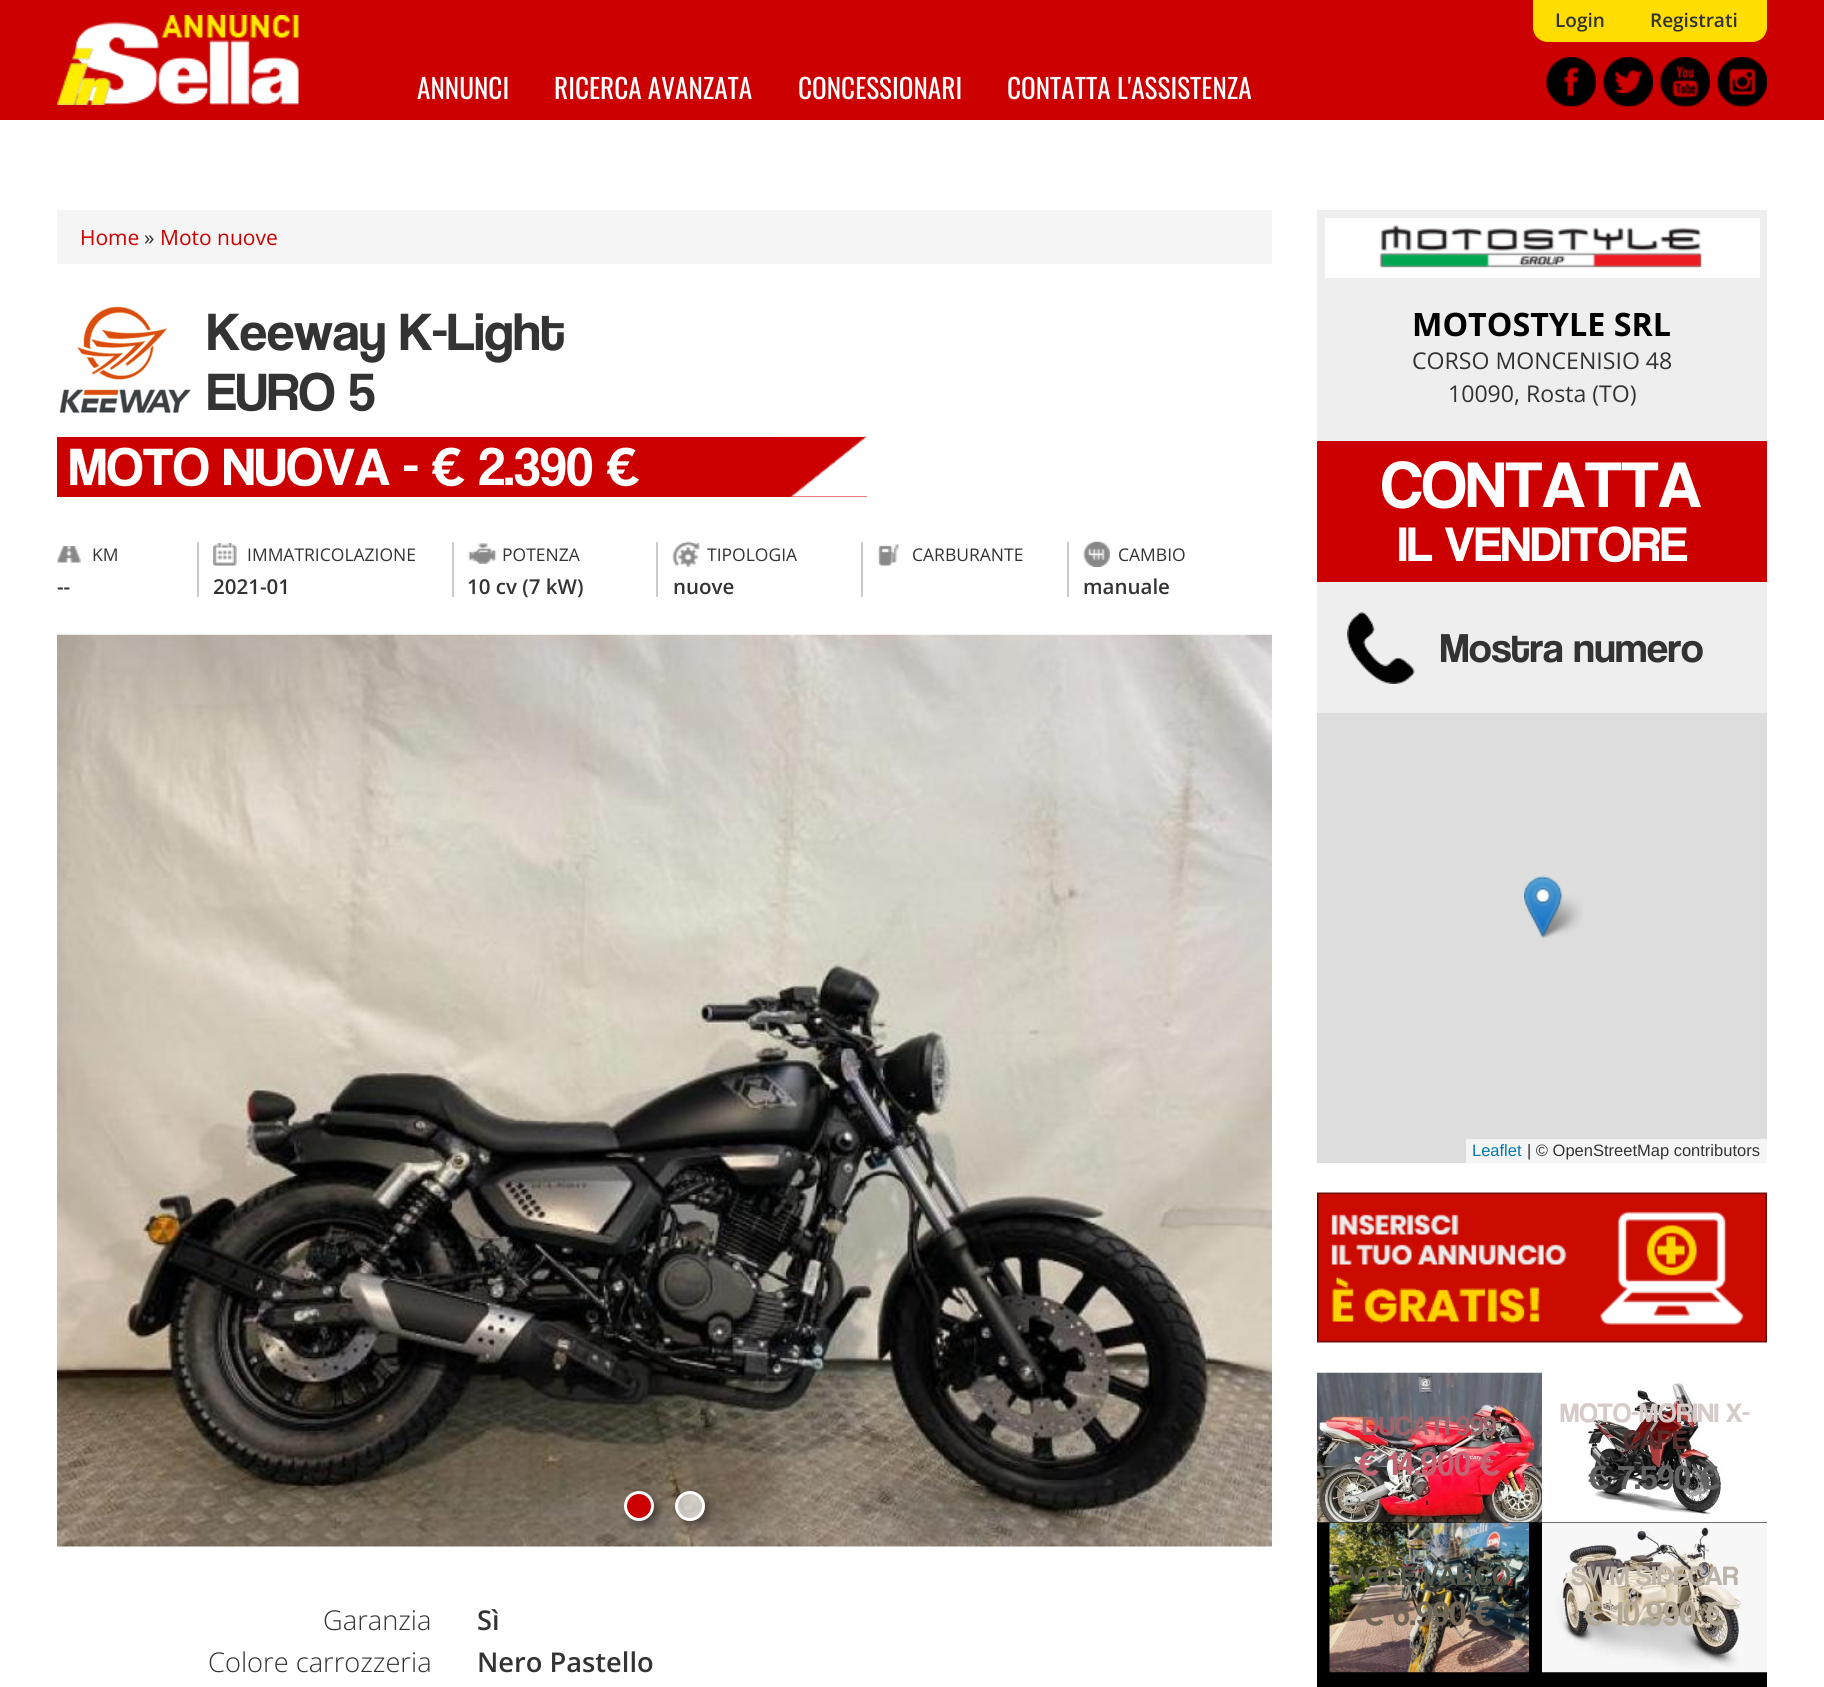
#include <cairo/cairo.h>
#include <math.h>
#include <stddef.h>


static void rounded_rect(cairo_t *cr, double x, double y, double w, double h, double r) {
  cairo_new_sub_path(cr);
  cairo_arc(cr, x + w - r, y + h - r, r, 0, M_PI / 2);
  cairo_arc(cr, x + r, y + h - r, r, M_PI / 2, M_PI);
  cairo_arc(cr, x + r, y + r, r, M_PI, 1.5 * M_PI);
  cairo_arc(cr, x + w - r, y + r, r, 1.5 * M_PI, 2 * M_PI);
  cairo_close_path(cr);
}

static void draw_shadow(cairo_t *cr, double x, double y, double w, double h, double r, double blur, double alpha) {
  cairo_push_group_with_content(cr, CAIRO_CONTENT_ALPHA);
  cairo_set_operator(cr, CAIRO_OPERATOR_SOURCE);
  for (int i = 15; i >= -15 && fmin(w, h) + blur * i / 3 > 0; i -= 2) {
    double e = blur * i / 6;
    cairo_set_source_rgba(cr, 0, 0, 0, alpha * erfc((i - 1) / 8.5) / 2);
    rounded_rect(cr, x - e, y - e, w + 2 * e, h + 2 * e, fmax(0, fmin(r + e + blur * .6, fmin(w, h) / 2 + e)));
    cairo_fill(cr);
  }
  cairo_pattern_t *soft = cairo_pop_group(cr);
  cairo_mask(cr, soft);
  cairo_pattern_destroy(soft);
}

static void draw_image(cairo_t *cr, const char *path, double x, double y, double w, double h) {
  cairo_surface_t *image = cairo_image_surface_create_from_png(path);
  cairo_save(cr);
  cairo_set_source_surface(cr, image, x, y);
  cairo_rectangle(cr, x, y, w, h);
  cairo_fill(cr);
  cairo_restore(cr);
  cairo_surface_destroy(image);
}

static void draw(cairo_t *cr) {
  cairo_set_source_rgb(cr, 1, 1, 1);
  cairo_paint(cr);
  cairo_set_source_rgb(cr, 204 / 255.0, 0, 0);
  cairo_rectangle(cr, 0, 0, 1824, 120);
  cairo_fill(cr);
  draw_image(cr, "images/1.png", 57, 15, 242, 90);
  cairo_set_source_rgb(cr, 1, 221 / 255.0, 0);
  cairo_new_path(cr);
  cairo_move_to(cr, 1533, 0);
  cairo_line_to(cr, 1767, 0);
  cairo_line_to(cr, 1767, 27);
  cairo_curve_to(cr, 1767, 35.5, 1760.5, 42, 1752, 42);
  cairo_line_to(cr, 1548, 42);
  cairo_curve_to(cr, 1539.5, 42, 1533, 35.5, 1533, 27);
  cairo_close_path(cr);
  cairo_fill(cr);
  draw_image(cr, "images/2.png", 1546, 57, 50, 50);
  draw_image(cr, "images/3.png", 1603, 57, 50, 50);
  draw_image(cr, "images/4.png", 1660, 57, 50, 50);
  draw_image(cr, "images/5.png", 1717, 57, 50, 50);
  cairo_set_source_rgb(cr, 245 / 255.0, 245 / 255.0, 245 / 255.0);
  cairo_rectangle(cr, 57, 210, 1215, 54);
  cairo_fill(cr);
  draw_image(cr, "images/6.png", 59, 306, 132, 108);
  cairo_set_source_rgb(cr, 204 / 255.0, 0, 0);
  cairo_rectangle(cr, 57, 437, 810, 60);
  cairo_fill(cr);
  draw_image(cr, "images/7.png", 782, 436, 85, 61);
  draw_image(cr, "images/8.png", 57, 546, 24, 17);
  cairo_set_source_rgb(cr, 204 / 255.0, 204 / 255.0, 204 / 255.0);
  cairo_rectangle(cr, 197, 542, 2, 55);
  cairo_fill(cr);
  draw_image(cr, "images/9.png", 213, 543, 24, 23);
  cairo_rectangle(cr, 452, 542, 2, 55);
  cairo_fill(cr);
  draw_image(cr, "images/10.png", 468, 543, 29, 21);
  cairo_rectangle(cr, 656, 542, 2, 55);
  cairo_fill(cr);
  draw_image(cr, "images/11.png", 672, 541, 29, 26);
  cairo_rectangle(cr, 861, 542, 2, 55);
  cairo_fill(cr);
  draw_image(cr, "images/12.png", 877, 544, 23, 22);
  cairo_rectangle(cr, 1067, 542, 2, 55);
  cairo_fill(cr);
  draw_image(cr, "images/13.png", 1083, 541, 27, 26);
  draw_image(cr, "images/14.png", 57, 634, 1215, 913);
  cairo_set_source_rgb(cr, 0, 0, 0);
  draw_shadow(cr, 629, 1496, 30, 30, 15, 4, 0.4);
  cairo_set_source_rgb(cr, 204 / 255.0, 0, 0);
  cairo_arc(cr, 639, 1506, 13.5, 0, 2 * M_PI);
  cairo_fill_preserve(cr);
  cairo_set_source_rgb(cr, 1, 1, 1);
  cairo_set_line_width(cr, 3);
  cairo_stroke(cr);
  cairo_save(cr);
  cairo_set_fill_rule(cr, CAIRO_FILL_RULE_EVEN_ODD);
  cairo_new_path(cr);
  cairo_move_to(cr, 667, 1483);
  cairo_line_to(cr, 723, 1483);
  cairo_line_to(cr, 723, 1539);
  cairo_line_to(cr, 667, 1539);
  cairo_close_path(cr);
  cairo_move_to(cr, 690, 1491);
  cairo_curve_to(cr, 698.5, 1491, 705, 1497.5, 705, 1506);
  cairo_curve_to(cr, 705, 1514.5, 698.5, 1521, 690, 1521);
  cairo_curve_to(cr, 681.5, 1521, 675, 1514.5, 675, 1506);
  cairo_curve_to(cr, 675, 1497.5, 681.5, 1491, 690, 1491);
  cairo_close_path(cr);
  cairo_clip(cr);
  cairo_set_source_rgb(cr, 0, 0, 0);
  draw_shadow(cr, 680, 1496, 30, 30, 15, 4, 0.4);
  cairo_restore(cr);
  cairo_set_source_rgba(cr, 1, 1, 1, 0.6);
  cairo_arc(cr, 690, 1506, 13.5, 0, 2 * M_PI);
  cairo_fill_preserve(cr);
  cairo_set_source_rgb(cr, 1, 1, 1);
  cairo_stroke(cr);
  cairo_set_source_rgb(cr, 238 / 255.0, 238 / 255.0, 238 / 255.0);
  cairo_rectangle(cr, 1317, 210, 450, 503);
  cairo_fill(cr);
  cairo_set_source_rgb(cr, 1, 1, 1);
  cairo_rectangle(cr, 1325, 218, 435, 60);
  cairo_fill(cr);
  draw_image(cr, "images/15.png", 1379, 225, 323, 43);
  cairo_set_source_rgb(cr, 204 / 255.0, 0, 0);
  cairo_rectangle(cr, 1317, 441, 450, 141);
  cairo_fill(cr);
  draw_image(cr, "images/16.png", 1347, 612, 68, 72);
  cairo_set_source_rgb(cr, 221 / 255.0, 221 / 255.0, 221 / 255.0);
  cairo_rectangle(cr, 1317, 713, 450, 450);
  cairo_fill(cr);
  draw_image(cr, "images/18.png", 1537, 895, 46, 43);
  draw_image(cr, "images/17.png", 1524, 876, 38, 62);
  cairo_set_source_rgb(cr, 245 / 255.0, 245 / 255.0, 245 / 255.0);
  cairo_rectangle(cr, 1466, 1139, 301, 24);
  cairo_fill(cr);
  draw_image(cr, "images/19.png", 1317, 1192, 450, 151);
  cairo_set_source_rgb(cr, 0, 0, 0);
  cairo_rectangle(cr, 1317, 1522, 450, 165);
  cairo_fill(cr);
  draw_image(cr, "images/20.png", 1317, 1372, 225, 151);
  draw_image(cr, "images/21.png", 1542, 1373, 225, 150);
  draw_image(cr, "images/22.png", 1329, 1522, 200, 151);
  draw_image(cr, "images/23.png", 1542, 1522, 225, 151);
  cairo_select_font_face(cr, "Open Sans SemiBold", CAIRO_FONT_SLANT_NORMAL, CAIRO_FONT_WEIGHT_NORMAL);
  cairo_set_font_size(cr, 19);
  cairo_set_source_rgb(cr, 51 / 255.0, 51 / 255.0, 51 / 255.0);
  cairo_move_to(cr, 1555, 27);
  cairo_show_text(cr, "Login");
  cairo_move_to(cr, 1650, 27);
  cairo_show_text(cr, "Registrati");
  cairo_select_font_face(cr, "Oswald", CAIRO_FONT_SLANT_NORMAL, CAIRO_FONT_WEIGHT_NORMAL);
  cairo_set_font_size(cr, 27.25);
  cairo_set_source_rgb(cr, 1, 1, 1);
  cairo_move_to(cr, 417, 99);
  cairo_show_text(cr, "ANNUNCI");
  cairo_move_to(cr, 554, 99);
  cairo_show_text(cr, "RICERCA AVANZATA");
  cairo_move_to(cr, 798, 99);
  cairo_show_text(cr, "CONCESSIONARI");
  cairo_move_to(cr, 1007, 99);
  cairo_show_text(cr, "CONTATTA L'ASSISTENZA");
  cairo_select_font_face(cr, "Open Sans", CAIRO_FONT_SLANT_NORMAL, CAIRO_FONT_WEIGHT_NORMAL);
  cairo_set_font_size(cr, 21);
  cairo_set_source_rgb(cr, 204 / 255.0, 0, 0);
  cairo_move_to(cr, 80, 245);
  cairo_show_text(cr, "Home");
  cairo_set_source_rgb(cr, 51 / 255.0, 51 / 255.0, 51 / 255.0);
  cairo_move_to(cr, 144, 245);
  cairo_show_text(cr, "»");
  cairo_set_source_rgb(cr, 204 / 255.0, 0, 0);
  cairo_move_to(cr, 160, 245);
  cairo_show_text(cr, "Moto nuove");
  cairo_select_font_face(cr, "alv", CAIRO_FONT_SLANT_NORMAL, CAIRO_FONT_WEIGHT_NORMAL);
  cairo_set_font_size(cr, 54.6);
  cairo_set_source_rgb(cr, 51 / 255.0, 51 / 255.0, 51 / 255.0);
  cairo_move_to(cr, 207, 350);
  cairo_show_text(cr, "Keeway K-Light");
  cairo_move_to(cr, 207, 410);
  cairo_show_text(cr, "EURO 5");
  cairo_set_source_rgb(cr, 1, 1, 1);
  cairo_move_to(cr, 69, 485);
  cairo_show_text(cr, "MOTO NUOVA - € 2.390 €");
  cairo_select_font_face(cr, "Open Sans", CAIRO_FONT_SLANT_NORMAL, CAIRO_FONT_WEIGHT_NORMAL);
  cairo_set_font_size(cr, 17.5);
  cairo_set_source_rgb(cr, 51 / 255.0, 51 / 255.0, 51 / 255.0);
  cairo_move_to(cr, 92, 561);
  cairo_show_text(cr, "KM");
  cairo_select_font_face(cr, "Open Sans SemiBold", CAIRO_FONT_SLANT_NORMAL, CAIRO_FONT_WEIGHT_NORMAL);
  cairo_set_font_size(cr, 20.5);
  cairo_move_to(cr, 57, 594);
  cairo_show_text(cr, "--");
  cairo_select_font_face(cr, "Open Sans", CAIRO_FONT_SLANT_NORMAL, CAIRO_FONT_WEIGHT_NORMAL);
  cairo_set_font_size(cr, 17.5);
  cairo_move_to(cr, 247, 561);
  cairo_show_text(cr, "IMMATRICOLAZIONE");
  cairo_select_font_face(cr, "Open Sans SemiBold", CAIRO_FONT_SLANT_NORMAL, CAIRO_FONT_WEIGHT_NORMAL);
  cairo_set_font_size(cr, 20.5);
  cairo_move_to(cr, 213, 594);
  cairo_show_text(cr, "2021-01");
  cairo_select_font_face(cr, "Open Sans", CAIRO_FONT_SLANT_NORMAL, CAIRO_FONT_WEIGHT_NORMAL);
  cairo_set_font_size(cr, 17.5);
  cairo_move_to(cr, 502, 561);
  cairo_show_text(cr, "POTENZA");
  cairo_select_font_face(cr, "Open Sans SemiBold", CAIRO_FONT_SLANT_NORMAL, CAIRO_FONT_WEIGHT_NORMAL);
  cairo_set_font_size(cr, 20.5);
  cairo_move_to(cr, 467, 594);
  cairo_show_text(cr, "10 cv (7 kW)");
  cairo_select_font_face(cr, "Open Sans", CAIRO_FONT_SLANT_NORMAL, CAIRO_FONT_WEIGHT_NORMAL);
  cairo_set_font_size(cr, 17.5);
  cairo_move_to(cr, 707, 561);
  cairo_show_text(cr, "TIPOLOGIA");
  cairo_select_font_face(cr, "Open Sans SemiBold", CAIRO_FONT_SLANT_NORMAL, CAIRO_FONT_WEIGHT_NORMAL);
  cairo_set_font_size(cr, 20.5);
  cairo_move_to(cr, 673, 594);
  cairo_show_text(cr, "nuove");
  cairo_select_font_face(cr, "Open Sans", CAIRO_FONT_SLANT_NORMAL, CAIRO_FONT_WEIGHT_NORMAL);
  cairo_set_font_size(cr, 17.5);
  cairo_move_to(cr, 912, 561);
  cairo_show_text(cr, "CARBURANTE");
  cairo_move_to(cr, 1118, 561);
  cairo_show_text(cr, "CAMBIO");
  cairo_select_font_face(cr, "Open Sans SemiBold", CAIRO_FONT_SLANT_NORMAL, CAIRO_FONT_WEIGHT_NORMAL);
  cairo_set_font_size(cr, 20.5);
  cairo_move_to(cr, 1083, 594);
  cairo_show_text(cr, "manuale");
  cairo_select_font_face(cr, "Open Sans Light", CAIRO_FONT_SLANT_NORMAL, CAIRO_FONT_WEIGHT_NORMAL);
  cairo_set_font_size(cr, 27.25);
  cairo_move_to(cr, 323, 1630);
  cairo_show_text(cr, "Garanzia");
  cairo_select_font_face(cr, "Open Sans SemiBold", CAIRO_FONT_SLANT_NORMAL, CAIRO_FONT_WEIGHT_NORMAL);
  cairo_move_to(cr, 477, 1630);
  cairo_show_text(cr, "Sì");
  cairo_select_font_face(cr, "Open Sans Light", CAIRO_FONT_SLANT_NORMAL, CAIRO_FONT_WEIGHT_NORMAL);
  cairo_move_to(cr, 208, 1672);
  cairo_show_text(cr, "Colore carrozzeria");
  cairo_select_font_face(cr, "Open Sans SemiBold", CAIRO_FONT_SLANT_NORMAL, CAIRO_FONT_WEIGHT_NORMAL);
  cairo_move_to(cr, 477, 1672);
  cairo_show_text(cr, "Nero Pastello");
  cairo_select_font_face(cr, "Open Sans", CAIRO_FONT_SLANT_NORMAL, CAIRO_FONT_WEIGHT_BOLD);
  cairo_set_font_size(cr, 32.25);
  cairo_set_source_rgb(cr, 0, 0, 0);
  cairo_move_to(cr, 1412, 336);
  cairo_show_text(cr, "MOTOSTYLE SRL");
  cairo_select_font_face(cr, "Open Sans", CAIRO_FONT_SLANT_NORMAL, CAIRO_FONT_WEIGHT_NORMAL);
  cairo_set_font_size(cr, 23.1);
  cairo_set_source_rgb(cr, 51 / 255.0, 51 / 255.0, 51 / 255.0);
  cairo_move_to(cr, 1412, 369);
  cairo_show_text(cr, "CORSO MONCENISIO 48");
  cairo_move_to(cr, 1448, 402);
  cairo_show_text(cr, "10090, Rosta (TO)");
  cairo_select_font_face(cr, "alv", CAIRO_FONT_SLANT_NORMAL, CAIRO_FONT_WEIGHT_NORMAL);
  cairo_set_font_size(cr, 67);
  cairo_set_source_rgb(cr, 1, 1, 1);
  cairo_move_to(cr, 1381, 507);
  cairo_show_text(cr, "CONTATTA");
  cairo_set_font_size(cr, 50.5);
  cairo_move_to(cr, 1398, 561);
  cairo_show_text(cr, "IL VENDITORE");
  cairo_set_font_size(cr, 42);
  cairo_set_source_rgb(cr, 51 / 255.0, 51 / 255.0, 51 / 255.0);
  cairo_move_to(cr, 1440, 662);
  cairo_show_text(cr, "Mostra numero");
  cairo_select_font_face(cr, "Liberation Sans", CAIRO_FONT_SLANT_NORMAL, CAIRO_FONT_WEIGHT_NORMAL);
  cairo_set_font_size(cr, 16.5);
  cairo_set_source_rgb(cr, 0, 120 / 255.0, 168 / 255.0);
  cairo_move_to(cr, 1472, 1156);
  cairo_show_text(cr, "Leaflet");
  cairo_set_source_rgb(cr, 51 / 255.0, 51 / 255.0, 51 / 255.0);
  cairo_move_to(cr, 1527, 1156);
  cairo_show_text(cr, "| © OpenStreetMap contributors");
  cairo_select_font_face(cr, "alv", CAIRO_FONT_SLANT_NORMAL, CAIRO_FONT_WEIGHT_NORMAL);
  cairo_set_font_size(cr, 27.75);
  cairo_set_source_rgb(cr, 157 / 255.0, 100 / 255.0, 107 / 255.0);
  cairo_move_to(cr, 1362, 1435);
  cairo_show_text(cr, "DUCATI 999");
  cairo_set_font_size(cr, 34.5);
  cairo_set_source_rgb(cr, 196 / 255.0, 99 / 255.0, 113 / 255.0);
  cairo_move_to(cr, 1358, 1475);
  cairo_show_text(cr, "€ 14.900 €");
  cairo_set_font_size(cr, 27.75);
  cairo_set_source_rgb(cr, 215 / 255.0, 203 / 255.0, 202 / 255.0);
  cairo_move_to(cr, 1560, 1422);
  cairo_show_text(cr, "MOTO-MORINI X-");
  cairo_set_source_rgb(cr, 86 / 255.0, 48 / 255.0, 46 / 255.0);
  cairo_move_to(cr, 1623, 1449);
  cairo_show_text(cr, "CAPE");
  cairo_set_font_size(cr, 34.5);
  cairo_set_source_rgb(cr, 99 / 255.0, 99 / 255.0, 99 / 255.0);
  cairo_move_to(cr, 1588, 1489);
  cairo_show_text(cr, "€ 7.590 €");
  cairo_set_font_size(cr, 27.75);
  cairo_set_source_rgb(cr, 84 / 255.0, 87 / 255.0, 74 / 255.0);
  cairo_move_to(cr, 1348, 1585);
  cairo_show_text(cr, "VOGE VALICO");
  cairo_set_font_size(cr, 34.5);
  cairo_set_source_rgb(cr, 112 / 255.0, 101 / 255.0, 87 / 255.0);
  cairo_move_to(cr, 1363, 1625);
  cairo_show_text(cr, "€ 6.990 €");
  cairo_set_font_size(cr, 27.75);
  cairo_set_source_rgb(cr, 189 / 255.0, 180 / 255.0, 169 / 255.0);
  cairo_move_to(cr, 1571, 1585);
  cairo_show_text(cr, "SWM SIDECAR");
  cairo_set_font_size(cr, 34.5);
  cairo_set_source_rgb(cr, 178 / 255.0, 168 / 255.0, 152 / 255.0);
  cairo_move_to(cr, 1583, 1625);
  cairo_show_text(cr, "€ 10.990 €");
}

int main(void) {
  cairo_surface_t *surface = cairo_image_surface_create(CAIRO_FORMAT_RGB24, 1824, 1687);
  cairo_t *cr = cairo_create(surface);
  cairo_font_options_t *options = cairo_font_options_create();
  cairo_font_options_set_hint_metrics(options, CAIRO_HINT_METRICS_OFF);
  cairo_font_options_set_hint_style(options, CAIRO_HINT_STYLE_NONE);
  cairo_set_font_options(cr, options);
  cairo_set_miter_limit(cr, 4);
  draw(cr);
  cairo_surface_write_to_png(surface, "out.png");
  cairo_font_options_destroy(options);
  cairo_destroy(cr);
  cairo_surface_destroy(surface);
  return 0;
}
